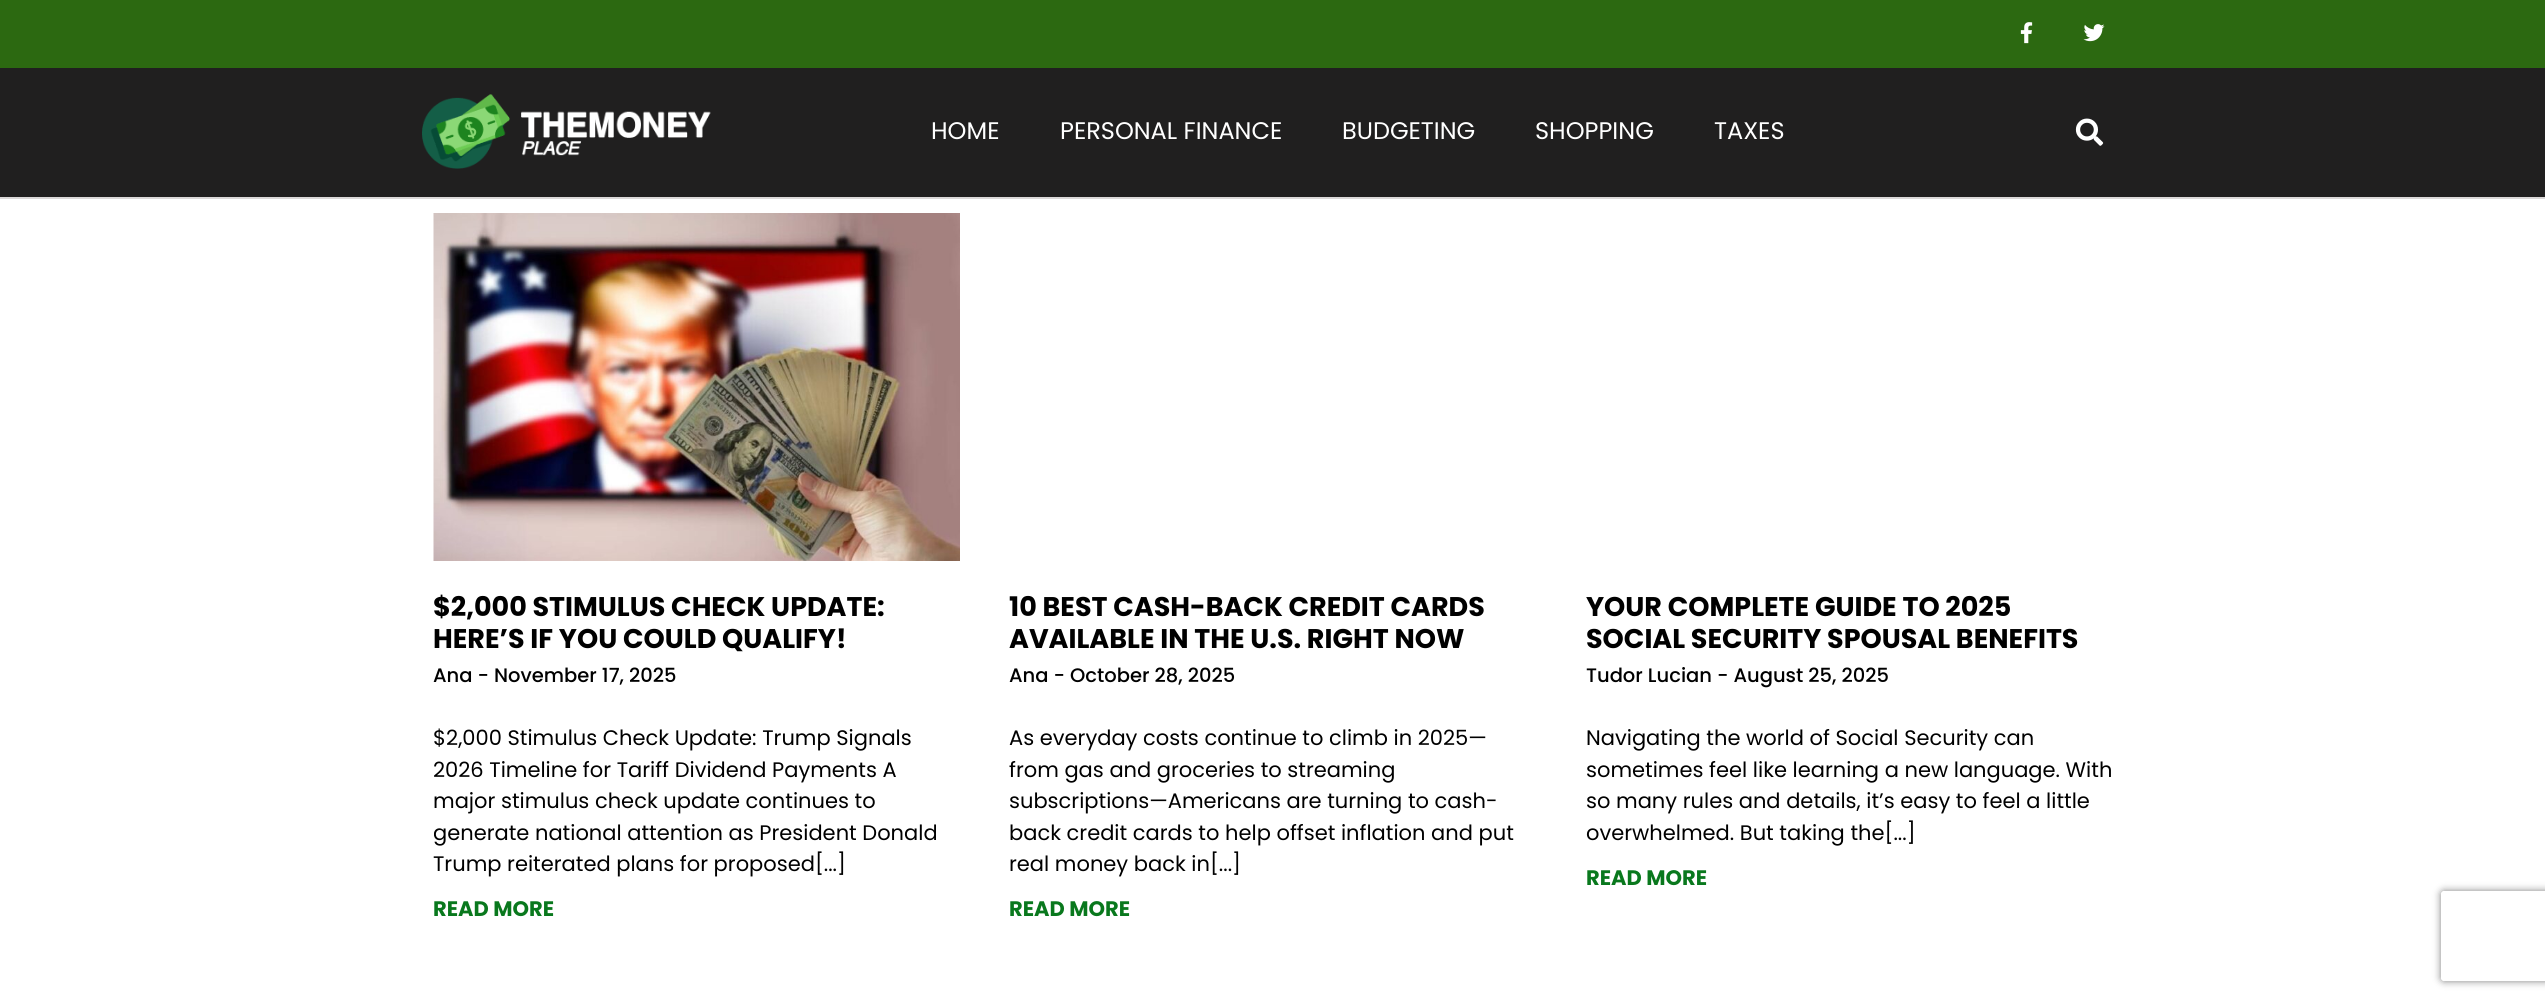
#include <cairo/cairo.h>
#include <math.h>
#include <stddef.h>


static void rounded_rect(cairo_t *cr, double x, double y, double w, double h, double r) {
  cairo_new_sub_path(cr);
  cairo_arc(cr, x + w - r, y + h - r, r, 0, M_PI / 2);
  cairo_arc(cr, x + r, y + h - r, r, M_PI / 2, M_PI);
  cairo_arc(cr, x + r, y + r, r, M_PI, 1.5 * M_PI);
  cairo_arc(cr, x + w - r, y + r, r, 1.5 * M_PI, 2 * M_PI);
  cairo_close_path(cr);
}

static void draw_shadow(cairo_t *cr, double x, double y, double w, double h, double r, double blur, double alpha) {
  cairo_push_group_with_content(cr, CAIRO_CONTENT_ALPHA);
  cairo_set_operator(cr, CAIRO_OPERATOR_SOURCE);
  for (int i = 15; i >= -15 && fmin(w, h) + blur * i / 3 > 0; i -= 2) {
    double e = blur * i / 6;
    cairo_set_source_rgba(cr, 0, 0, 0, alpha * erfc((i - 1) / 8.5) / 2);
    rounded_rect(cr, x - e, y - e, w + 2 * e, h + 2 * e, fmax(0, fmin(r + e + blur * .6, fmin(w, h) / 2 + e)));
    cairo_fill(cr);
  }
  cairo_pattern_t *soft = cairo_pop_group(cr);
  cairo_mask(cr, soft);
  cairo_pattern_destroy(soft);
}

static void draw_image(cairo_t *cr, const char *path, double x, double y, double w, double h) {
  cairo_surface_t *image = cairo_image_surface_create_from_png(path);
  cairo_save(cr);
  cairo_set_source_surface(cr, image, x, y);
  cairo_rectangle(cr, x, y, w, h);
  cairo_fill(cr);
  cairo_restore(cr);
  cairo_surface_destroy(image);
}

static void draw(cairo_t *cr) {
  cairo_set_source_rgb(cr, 1, 1, 1);
  cairo_paint(cr);
  cairo_set_source_rgb(cr, 44 / 255.0, 105 / 255.0, 17 / 255.0);
  cairo_rectangle(cr, 0, 0, 2545, 68);
  cairo_fill(cr);
  draw_image(cr, "images/1.png", 2020, 22, 13, 22);
  draw_image(cr, "images/2.png", 2083, 24, 22, 18);
  cairo_set_source_rgb(cr, 32 / 255.0, 31 / 255.0, 31 / 255.0);
  cairo_rectangle(cr, 0, 68, 2545, 129);
  cairo_fill(cr);
  cairo_set_source_rgb(cr, 219 / 255.0, 216 / 255.0, 216 / 255.0);
  cairo_rectangle(cr, 0, 197, 2545, 2);
  cairo_fill(cr);
  draw_image(cr, "images/3.png", 422, 94, 289, 75);
  draw_image(cr, "images/4.png", 2075, 118, 29, 28);
  draw_image(cr, "images/5.png", 433, 213, 527, 348);
  cairo_save(cr);
  cairo_set_fill_rule(cr, CAIRO_FILL_RULE_EVEN_ODD);
  cairo_new_path(cr);
  cairo_move_to(cr, 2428, 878);
  cairo_line_to(cr, 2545, 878);
  cairo_line_to(cr, 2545, 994);
  cairo_line_to(cr, 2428, 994);
  cairo_close_path(cr);
  cairo_move_to(cr, 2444, 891);
  cairo_line_to(cr, 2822, 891);
  cairo_curve_to(cr, 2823.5, 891, 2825, 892.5, 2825, 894);
  cairo_line_to(cr, 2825, 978);
  cairo_curve_to(cr, 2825, 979.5, 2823.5, 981, 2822, 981);
  cairo_line_to(cr, 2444, 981);
  cairo_curve_to(cr, 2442.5, 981, 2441, 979.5, 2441, 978);
  cairo_line_to(cr, 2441, 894);
  cairo_curve_to(cr, 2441, 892.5, 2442.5, 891, 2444, 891);
  cairo_close_path(cr);
  cairo_clip(cr);
  cairo_set_source_rgb(cr, 128 / 255.0, 128 / 255.0, 128 / 255.0);
  draw_shadow(cr, 2441, 891, 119, 90, 3, 4, 1);
  cairo_restore(cr);
  cairo_select_font_face(cr, "Poppins", CAIRO_FONT_SLANT_NORMAL, CAIRO_FONT_WEIGHT_NORMAL);
  cairo_set_font_size(cr, 24);
  cairo_set_source_rgb(cr, 1, 1, 1);
  cairo_move_to(cr, 931, 139);
  cairo_show_text(cr, "HOME");
  cairo_move_to(cr, 1060, 139);
  cairo_show_text(cr, "PERSONAL FINANCE");
  cairo_move_to(cr, 1342, 139);
  cairo_show_text(cr, "BUDGETING");
  cairo_move_to(cr, 1535, 139);
  cairo_show_text(cr, "SHOPPING");
  cairo_move_to(cr, 1714, 139);
  cairo_show_text(cr, "TAXES");
  cairo_select_font_face(cr, "Poppins", CAIRO_FONT_SLANT_NORMAL, CAIRO_FONT_WEIGHT_BOLD);
  cairo_set_font_size(cr, 27);
  cairo_set_source_rgb(cr, 0, 0, 0);
  cairo_move_to(cr, 433, 616);
  cairo_show_text(cr, "$2,000 STIMULUS CHECK UPDATE:");
  cairo_move_to(cr, 433, 648);
  cairo_show_text(cr, "HERE’S IF YOU COULD QUALIFY!");
  cairo_select_font_face(cr, "Poppins Medium", CAIRO_FONT_SLANT_NORMAL, CAIRO_FONT_WEIGHT_NORMAL);
  cairo_set_font_size(cr, 19.5);
  cairo_move_to(cr, 433, 682);
  cairo_show_text(cr, "Ana - November 17, 2025");
  cairo_select_font_face(cr, "Poppins", CAIRO_FONT_SLANT_NORMAL, CAIRO_FONT_WEIGHT_NORMAL);
  cairo_set_font_size(cr, 21);
  cairo_move_to(cr, 433, 745);
  cairo_show_text(cr, "$2,000 Stimulus Check Update: Trump Signals");
  cairo_move_to(cr, 433, 777);
  cairo_show_text(cr, "2026 Timeline for Tariff Dividend Payments A");
  cairo_move_to(cr, 433, 808);
  cairo_show_text(cr, "major stimulus check update continues to");
  cairo_save(cr);
  cairo_rectangle(cr, 434, 213, 526, 746);
  cairo_clip(cr);
  cairo_move_to(cr, 433, 840);
  cairo_show_text(cr, "generate national attention as President Donald");
  cairo_restore(cr);
  cairo_move_to(cr, 433, 871);
  cairo_show_text(cr, "Trump reiterated plans for proposed[...]");
  cairo_select_font_face(cr, "Poppins", CAIRO_FONT_SLANT_NORMAL, CAIRO_FONT_WEIGHT_BOLD);
  cairo_set_source_rgb(cr, 9 / 255.0, 120 / 255.0, 29 / 255.0);
  cairo_move_to(cr, 433, 916);
  cairo_show_text(cr, "READ MORE");
  cairo_set_font_size(cr, 27);
  cairo_set_source_rgb(cr, 0, 0, 0);
  cairo_move_to(cr, 1009, 616);
  cairo_show_text(cr, "10 BEST CASH-BACK CREDIT CARDS");
  cairo_move_to(cr, 1009, 648);
  cairo_show_text(cr, "AVAILABLE IN THE U.S. RIGHT NOW");
  cairo_select_font_face(cr, "Poppins Medium", CAIRO_FONT_SLANT_NORMAL, CAIRO_FONT_WEIGHT_NORMAL);
  cairo_set_font_size(cr, 19.5);
  cairo_move_to(cr, 1009, 682);
  cairo_show_text(cr, "Ana - October 28, 2025");
  cairo_select_font_face(cr, "Poppins", CAIRO_FONT_SLANT_NORMAL, CAIRO_FONT_WEIGHT_NORMAL);
  cairo_set_font_size(cr, 21);
  cairo_move_to(cr, 1009, 745);
  cairo_show_text(cr, "As everyday costs continue to climb in 2025—");
  cairo_move_to(cr, 1009, 777);
  cairo_show_text(cr, "from gas and groceries to streaming");
  cairo_move_to(cr, 1009, 808);
  cairo_show_text(cr, "subscriptions—Americans are turning to cash-");
  cairo_move_to(cr, 1009, 840);
  cairo_show_text(cr, "back credit cards to help offset inflation and put");
  cairo_move_to(cr, 1009, 871);
  cairo_show_text(cr, "real money back in[...]");
  cairo_select_font_face(cr, "Poppins", CAIRO_FONT_SLANT_NORMAL, CAIRO_FONT_WEIGHT_BOLD);
  cairo_set_source_rgb(cr, 9 / 255.0, 120 / 255.0, 29 / 255.0);
  cairo_move_to(cr, 1009, 916);
  cairo_show_text(cr, "READ MORE");
  cairo_set_font_size(cr, 27);
  cairo_set_source_rgb(cr, 0, 0, 0);
  cairo_move_to(cr, 1586, 616);
  cairo_show_text(cr, "YOUR COMPLETE GUIDE TO 2025");
  cairo_move_to(cr, 1586, 648);
  cairo_show_text(cr, "SOCIAL SECURITY SPOUSAL BENEFITS");
  cairo_select_font_face(cr, "Poppins Medium", CAIRO_FONT_SLANT_NORMAL, CAIRO_FONT_WEIGHT_NORMAL);
  cairo_set_font_size(cr, 19.5);
  cairo_move_to(cr, 1586, 682);
  cairo_show_text(cr, "Tudor Lucian - August 25, 2025");
  cairo_select_font_face(cr, "Poppins", CAIRO_FONT_SLANT_NORMAL, CAIRO_FONT_WEIGHT_NORMAL);
  cairo_set_font_size(cr, 21);
  cairo_move_to(cr, 1586, 745);
  cairo_show_text(cr, "Navigating the world of Social Security can");
  cairo_move_to(cr, 1586, 777);
  cairo_show_text(cr, "sometimes feel like learning a new language. With");
  cairo_move_to(cr, 1586, 808);
  cairo_show_text(cr, "so many rules and details, it’s easy to feel a little");
  cairo_move_to(cr, 1586, 840);
  cairo_show_text(cr, "overwhelmed. But taking the[...]");
  cairo_select_font_face(cr, "Poppins", CAIRO_FONT_SLANT_NORMAL, CAIRO_FONT_WEIGHT_BOLD);
  cairo_set_source_rgb(cr, 9 / 255.0, 120 / 255.0, 29 / 255.0);
  cairo_move_to(cr, 1586, 885);
  cairo_show_text(cr, "READ MORE");
}

int main(void) {
  cairo_surface_t *surface = cairo_image_surface_create(CAIRO_FORMAT_RGB24, 2545, 1002);
  cairo_t *cr = cairo_create(surface);
  cairo_font_options_t *options = cairo_font_options_create();
  cairo_font_options_set_hint_metrics(options, CAIRO_HINT_METRICS_OFF);
  cairo_font_options_set_hint_style(options, CAIRO_HINT_STYLE_NONE);
  cairo_set_font_options(cr, options);
  cairo_set_miter_limit(cr, 4);
  draw(cr);
  cairo_surface_write_to_png(surface, "out.png");
  cairo_font_options_destroy(options);
  cairo_destroy(cr);
  cairo_surface_destroy(surface);
  return 0;
}
